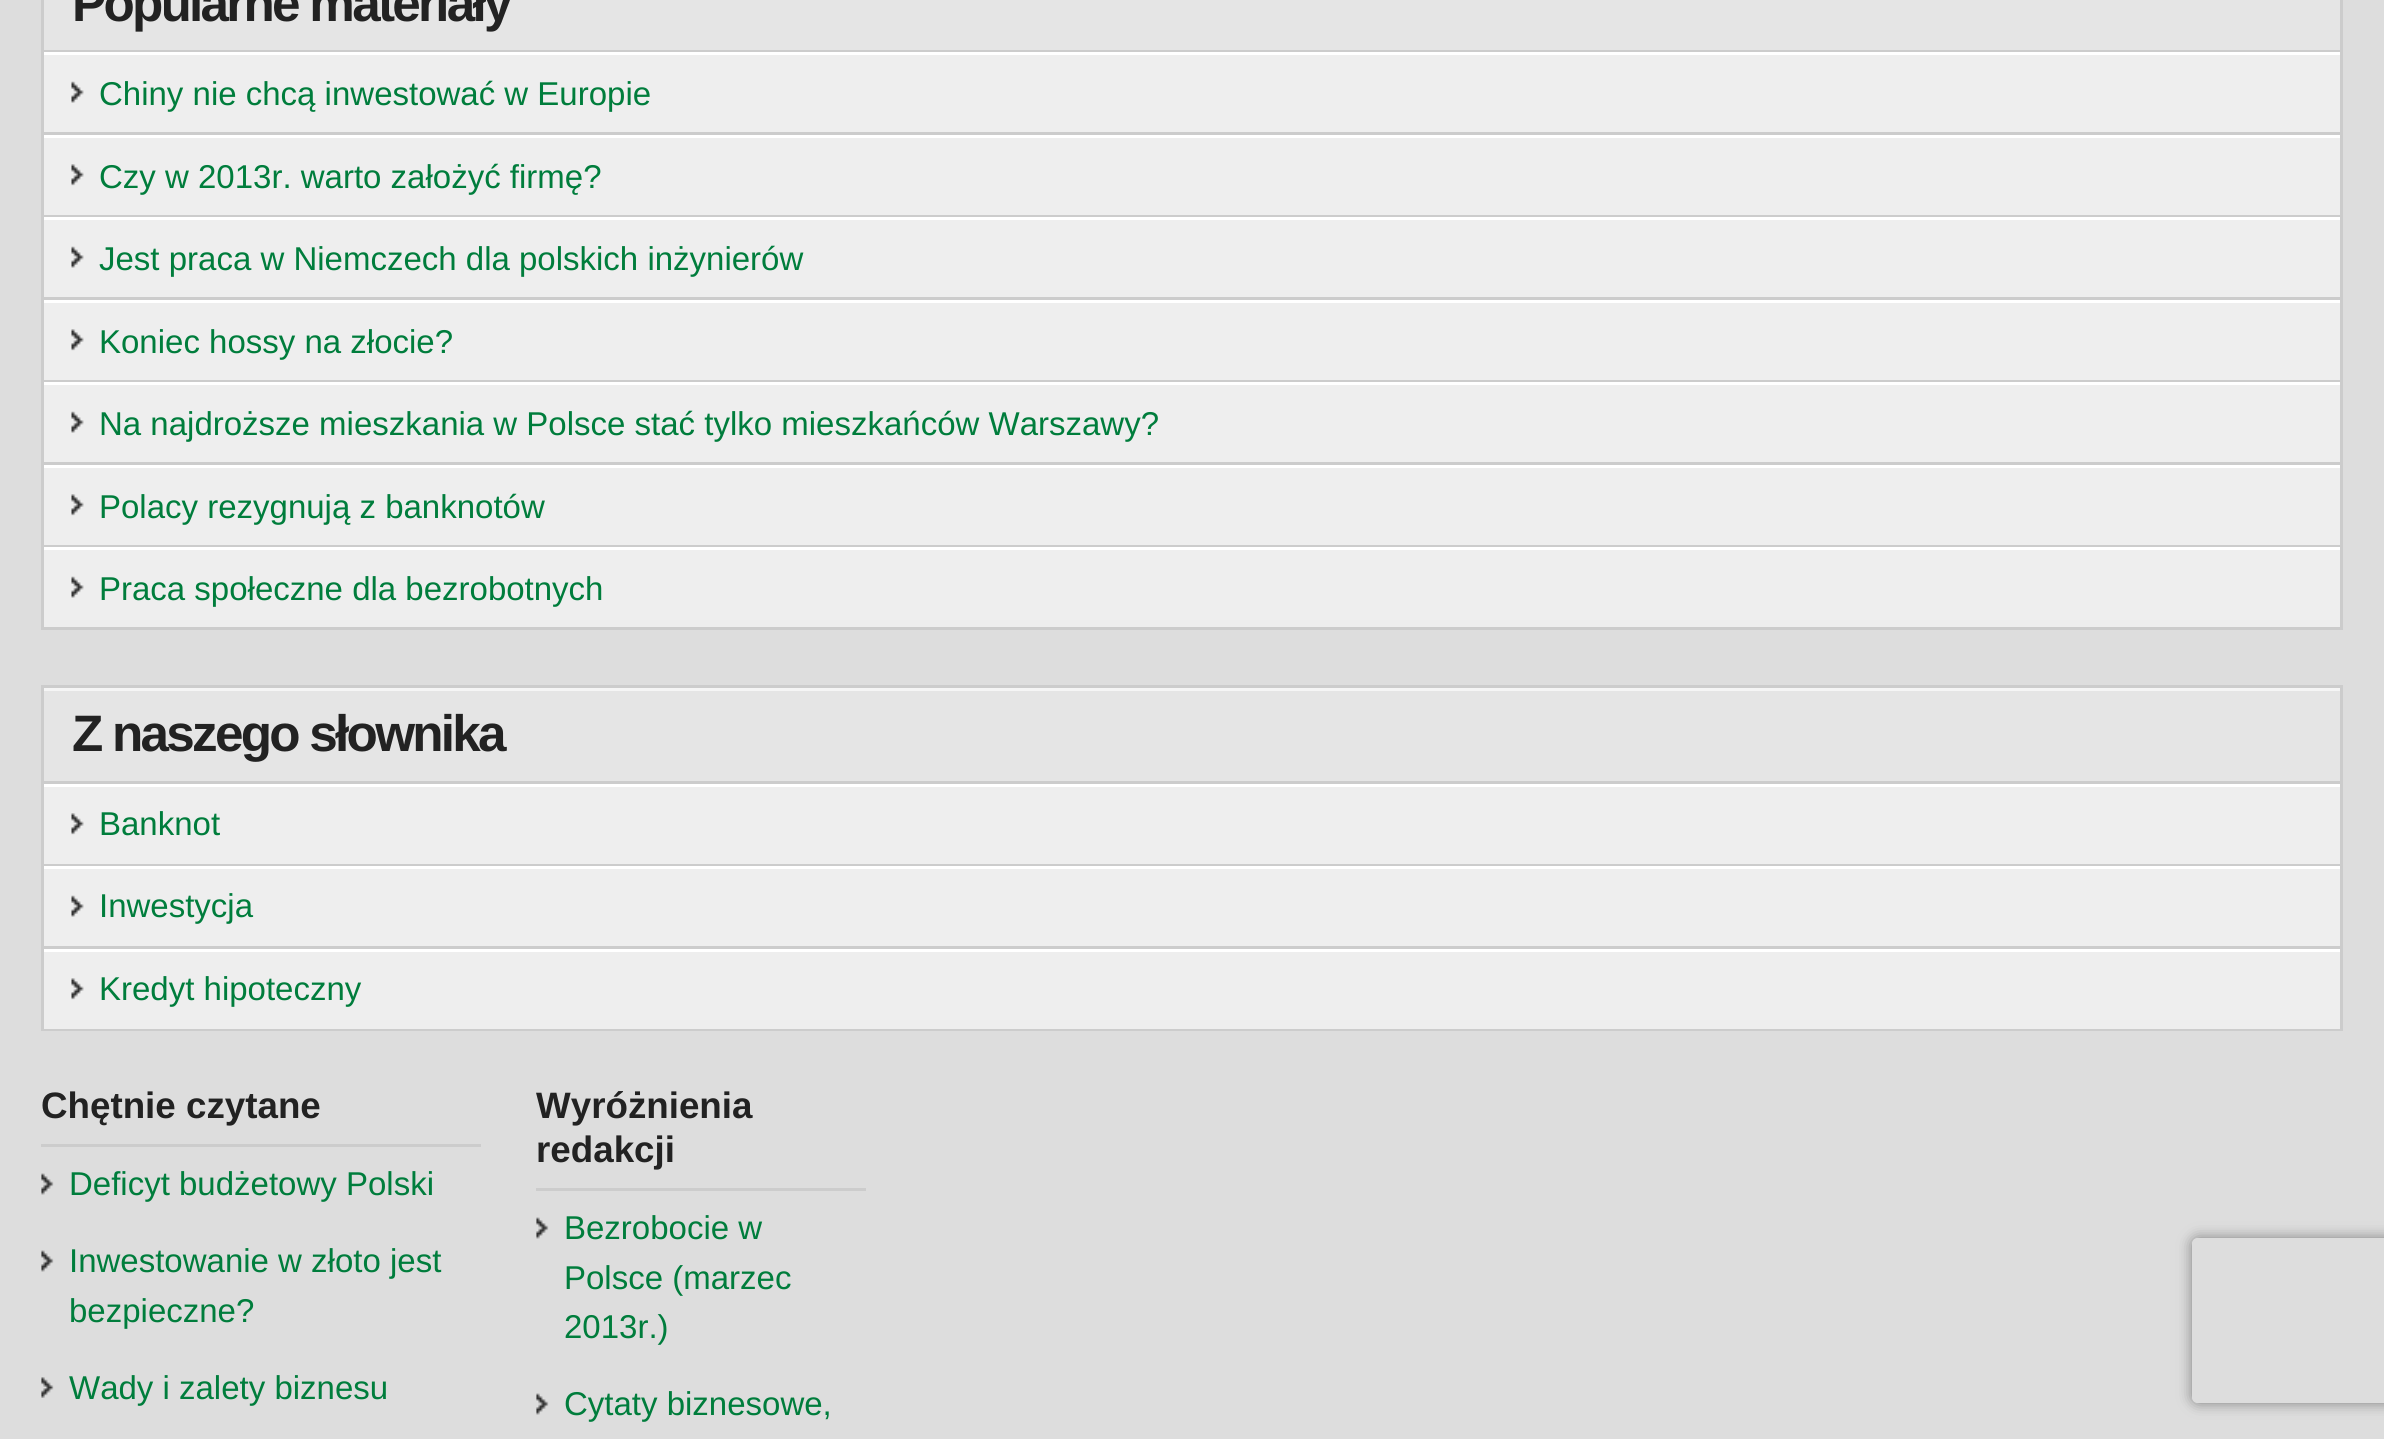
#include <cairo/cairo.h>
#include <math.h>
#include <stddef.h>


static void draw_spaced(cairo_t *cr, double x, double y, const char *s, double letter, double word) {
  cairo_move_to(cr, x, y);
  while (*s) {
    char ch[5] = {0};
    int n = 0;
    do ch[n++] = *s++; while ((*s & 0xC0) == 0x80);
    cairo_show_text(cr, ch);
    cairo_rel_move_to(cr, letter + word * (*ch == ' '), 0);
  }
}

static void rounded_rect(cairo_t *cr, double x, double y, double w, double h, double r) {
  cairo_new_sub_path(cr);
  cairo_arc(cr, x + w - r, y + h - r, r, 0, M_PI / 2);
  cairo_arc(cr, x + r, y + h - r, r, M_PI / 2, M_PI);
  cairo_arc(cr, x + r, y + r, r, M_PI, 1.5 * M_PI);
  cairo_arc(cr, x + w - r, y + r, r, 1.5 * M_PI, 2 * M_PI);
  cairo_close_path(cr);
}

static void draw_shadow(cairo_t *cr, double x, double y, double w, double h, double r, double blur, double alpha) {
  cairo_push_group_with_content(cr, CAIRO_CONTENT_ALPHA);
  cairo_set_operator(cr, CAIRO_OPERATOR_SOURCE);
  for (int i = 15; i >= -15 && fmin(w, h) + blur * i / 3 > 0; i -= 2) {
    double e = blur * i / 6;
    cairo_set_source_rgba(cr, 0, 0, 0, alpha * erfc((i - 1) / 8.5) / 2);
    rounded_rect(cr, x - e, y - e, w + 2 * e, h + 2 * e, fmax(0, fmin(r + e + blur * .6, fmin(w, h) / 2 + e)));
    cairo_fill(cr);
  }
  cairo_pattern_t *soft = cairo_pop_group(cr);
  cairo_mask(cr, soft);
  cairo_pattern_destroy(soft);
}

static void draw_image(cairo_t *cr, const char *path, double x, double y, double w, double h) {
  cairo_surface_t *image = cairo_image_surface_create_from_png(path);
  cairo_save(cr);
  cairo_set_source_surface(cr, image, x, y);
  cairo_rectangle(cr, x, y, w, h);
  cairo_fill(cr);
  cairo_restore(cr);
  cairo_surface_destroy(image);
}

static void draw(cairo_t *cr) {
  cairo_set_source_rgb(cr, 221 / 255.0, 221 / 255.0, 221 / 255.0);
  cairo_paint(cr);
  cairo_set_source_rgb(cr, 238 / 255.0, 238 / 255.0, 238 / 255.0);
  cairo_rectangle(cr, 44, 55, 2296, 572);
  cairo_fill(cr);
  cairo_set_source_rgb(cr, 204 / 255.0, 204 / 255.0, 204 / 255.0);
  cairo_rectangle(cr, 2340, 0, 3, 630);
  cairo_fill(cr);
  cairo_rectangle(cr, 41, 0, 3, 630);
  cairo_fill(cr);
  cairo_set_source_rgb(cr, 229 / 255.0, 229 / 255.0, 229 / 255.0);
  cairo_rectangle(cr, 44, 0, 2296, 50);
  cairo_fill(cr);
  cairo_set_source_rgb(cr, 204 / 255.0, 204 / 255.0, 204 / 255.0);
  cairo_rectangle(cr, 44, 50, 2296, 2);
  cairo_fill(cr);
  draw_image(cr, "images/1.png", 71, 81, 13, 22);
  cairo_set_source_rgb(cr, 1, 1, 1);
  cairo_rectangle(cr, 44, 52, 2296, 3);
  cairo_fill(cr);
  cairo_set_source_rgb(cr, 204 / 255.0, 204 / 255.0, 204 / 255.0);
  cairo_rectangle(cr, 44, 132, 2296, 3);
  cairo_fill(cr);
  draw_image(cr, "images/2.png", 71, 164, 13, 22);
  cairo_set_source_rgb(cr, 1, 1, 1);
  cairo_rectangle(cr, 44, 135, 2296, 3);
  cairo_fill(cr);
  cairo_set_source_rgb(cr, 204 / 255.0, 204 / 255.0, 204 / 255.0);
  cairo_rectangle(cr, 44, 215, 2296, 2);
  cairo_fill(cr);
  draw_image(cr, "images/1.png", 71, 246, 13, 22);
  cairo_set_source_rgb(cr, 1, 1, 1);
  cairo_rectangle(cr, 44, 217, 2296, 3);
  cairo_fill(cr);
  cairo_set_source_rgb(cr, 204 / 255.0, 204 / 255.0, 204 / 255.0);
  cairo_rectangle(cr, 44, 297, 2296, 3);
  cairo_fill(cr);
  draw_image(cr, "images/2.png", 71, 329, 13, 22);
  cairo_set_source_rgb(cr, 1, 1, 1);
  cairo_rectangle(cr, 44, 300, 2296, 3);
  cairo_fill(cr);
  cairo_set_source_rgb(cr, 204 / 255.0, 204 / 255.0, 204 / 255.0);
  cairo_rectangle(cr, 44, 380, 2296, 2);
  cairo_fill(cr);
  draw_image(cr, "images/1.png", 71, 411, 13, 22);
  cairo_set_source_rgb(cr, 1, 1, 1);
  cairo_rectangle(cr, 44, 382, 2296, 3);
  cairo_fill(cr);
  cairo_set_source_rgb(cr, 204 / 255.0, 204 / 255.0, 204 / 255.0);
  cairo_rectangle(cr, 44, 462, 2296, 3);
  cairo_fill(cr);
  draw_image(cr, "images/2.png", 71, 494, 13, 22);
  cairo_set_source_rgb(cr, 1, 1, 1);
  cairo_rectangle(cr, 44, 465, 2296, 3);
  cairo_fill(cr);
  cairo_set_source_rgb(cr, 204 / 255.0, 204 / 255.0, 204 / 255.0);
  cairo_rectangle(cr, 44, 545, 2296, 2);
  cairo_fill(cr);
  draw_image(cr, "images/1.png", 71, 576, 13, 22);
  cairo_set_source_rgb(cr, 1, 1, 1);
  cairo_rectangle(cr, 44, 547, 2296, 3);
  cairo_fill(cr);
  cairo_set_source_rgb(cr, 204 / 255.0, 204 / 255.0, 204 / 255.0);
  cairo_rectangle(cr, 44, 627, 2296, 3);
  cairo_fill(cr);
  cairo_set_source_rgb(cr, 238 / 255.0, 238 / 255.0, 238 / 255.0);
  cairo_rectangle(cr, 44, 787, 2296, 242);
  cairo_fill(cr);
  cairo_set_source_rgb(cr, 204 / 255.0, 204 / 255.0, 204 / 255.0);
  cairo_rectangle(cr, 41, 685, 2302, 3);
  cairo_fill(cr);
  cairo_rectangle(cr, 2340, 685, 3, 346);
  cairo_fill(cr);
  cairo_rectangle(cr, 41, 685, 3, 346);
  cairo_fill(cr);
  cairo_set_source_rgb(cr, 229 / 255.0, 229 / 255.0, 229 / 255.0);
  cairo_rectangle(cr, 44, 691, 2296, 90);
  cairo_fill(cr);
  cairo_set_source_rgb(cr, 245 / 255.0, 245 / 255.0, 245 / 255.0);
  cairo_rectangle(cr, 44, 688, 2296, 3);
  cairo_fill(cr);
  cairo_set_source_rgb(cr, 204 / 255.0, 204 / 255.0, 204 / 255.0);
  cairo_rectangle(cr, 44, 781, 2296, 3);
  cairo_fill(cr);
  draw_image(cr, "images/2.png", 71, 813, 13, 22);
  cairo_set_source_rgb(cr, 1, 1, 1);
  cairo_rectangle(cr, 44, 784, 2296, 3);
  cairo_fill(cr);
  cairo_set_source_rgb(cr, 204 / 255.0, 204 / 255.0, 204 / 255.0);
  cairo_rectangle(cr, 44, 864, 2296, 2);
  cairo_fill(cr);
  draw_image(cr, "images/1.png", 71, 895, 13, 22);
  cairo_set_source_rgb(cr, 1, 1, 1);
  cairo_rectangle(cr, 44, 866, 2296, 3);
  cairo_fill(cr);
  cairo_set_source_rgb(cr, 204 / 255.0, 204 / 255.0, 204 / 255.0);
  cairo_rectangle(cr, 44, 946, 2296, 3);
  cairo_fill(cr);
  draw_image(cr, "images/2.png", 71, 978, 13, 22);
  cairo_set_source_rgb(cr, 1, 1, 1);
  cairo_rectangle(cr, 44, 949, 2296, 3);
  cairo_fill(cr);
  cairo_set_source_rgb(cr, 204 / 255.0, 204 / 255.0, 204 / 255.0);
  cairo_rectangle(cr, 44, 1029, 2296, 2);
  cairo_fill(cr);
  cairo_rectangle(cr, 41, 1144, 440, 3);
  cairo_fill(cr);
  draw_image(cr, "images/3.png", 41, 1173, 13, 22);
  draw_image(cr, "images/3.png", 41, 1250, 13, 22);
  draw_image(cr, "images/4.png", 41, 1377, 13, 21);
  cairo_rectangle(cr, 536, 1188, 330, 3);
  cairo_fill(cr);
  draw_image(cr, "images/5.png", 536, 1217, 13, 22);
  draw_image(cr, "images/5.png", 536, 1393, 13, 22);
  cairo_save(cr);
  cairo_set_fill_rule(cr, CAIRO_FILL_RULE_EVEN_ODD);
  cairo_new_path(cr);
  cairo_move_to(cr, 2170, 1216);
  cairo_line_to(cr, 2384, 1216);
  cairo_line_to(cr, 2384, 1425);
  cairo_line_to(cr, 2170, 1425);
  cairo_close_path(cr);
  cairo_move_to(cr, 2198, 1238);
  cairo_line_to(cr, 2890, 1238);
  cairo_curve_to(cr, 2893.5, 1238, 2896, 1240.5, 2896, 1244);
  cairo_line_to(cr, 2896, 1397);
  cairo_curve_to(cr, 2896, 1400.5, 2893.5, 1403, 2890, 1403);
  cairo_line_to(cr, 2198, 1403);
  cairo_curve_to(cr, 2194.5, 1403, 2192, 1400.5, 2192, 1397);
  cairo_line_to(cr, 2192, 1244);
  cairo_curve_to(cr, 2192, 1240.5, 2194.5, 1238, 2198, 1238);
  cairo_close_path(cr);
  cairo_clip(cr);
  cairo_set_source_rgb(cr, 128 / 255.0, 128 / 255.0, 128 / 255.0);
  draw_shadow(cr, 2192, 1238, 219, 165, 6, 7, 1);
  cairo_restore(cr);
  cairo_select_font_face(cr, "Liberation Sans", CAIRO_FONT_SLANT_NORMAL, CAIRO_FONT_WEIGHT_BOLD);
  cairo_set_font_size(cr, 51.25);
  cairo_set_source_rgb(cr, 34 / 255.0, 34 / 255.0, 34 / 255.0);
  draw_spaced(cr, 72, 21, "Popularne materiały", -2.75, 0);
  cairo_select_font_face(cr, "Liberation Sans", CAIRO_FONT_SLANT_NORMAL, CAIRO_FONT_WEIGHT_NORMAL);
  cairo_set_font_size(cr, 33);
  cairo_set_source_rgb(cr, 0, 125 / 255.0, 60 / 255.0);
  cairo_move_to(cr, 99, 105);
  cairo_show_text(cr, "Chiny nie chcą inwestować w Europie");
  cairo_move_to(cr, 99, 188);
  cairo_show_text(cr, "Czy w 2013r. warto założyć firmę?");
  cairo_move_to(cr, 99, 270);
  cairo_show_text(cr, "Jest praca w Niemczech dla polskich inżynierów");
  cairo_move_to(cr, 99, 353);
  cairo_show_text(cr, "Koniec hossy na złocie?");
  cairo_move_to(cr, 99, 435);
  cairo_show_text(cr, "Na najdroższe mieszkania w Polsce stać tylko mieszkańców Warszawy?");
  cairo_move_to(cr, 99, 518);
  cairo_show_text(cr, "Polacy rezygnują z banknotów");
  cairo_move_to(cr, 99, 600);
  cairo_show_text(cr, "Praca społeczne dla bezrobotnych");
  cairo_select_font_face(cr, "Liberation Sans", CAIRO_FONT_SLANT_NORMAL, CAIRO_FONT_WEIGHT_BOLD);
  cairo_set_font_size(cr, 51.25);
  cairo_set_source_rgb(cr, 34 / 255.0, 34 / 255.0, 34 / 255.0);
  draw_spaced(cr, 72, 751, "Z naszego słownika", -2.75, 0);
  cairo_select_font_face(cr, "Liberation Sans", CAIRO_FONT_SLANT_NORMAL, CAIRO_FONT_WEIGHT_NORMAL);
  cairo_set_font_size(cr, 33);
  cairo_set_source_rgb(cr, 0, 125 / 255.0, 60 / 255.0);
  cairo_move_to(cr, 99, 835);
  cairo_show_text(cr, "Banknot");
  cairo_move_to(cr, 99, 917);
  cairo_show_text(cr, "Inwestycja");
  cairo_move_to(cr, 99, 1000);
  cairo_show_text(cr, "Kredyt hipoteczny");
  cairo_select_font_face(cr, "Liberation Sans", CAIRO_FONT_SLANT_NORMAL, CAIRO_FONT_WEIGHT_BOLD);
  cairo_set_font_size(cr, 36.75);
  cairo_set_source_rgb(cr, 34 / 255.0, 34 / 255.0, 34 / 255.0);
  cairo_move_to(cr, 41, 1118);
  cairo_show_text(cr, "Chętnie czytane");
  cairo_select_font_face(cr, "Liberation Sans", CAIRO_FONT_SLANT_NORMAL, CAIRO_FONT_WEIGHT_NORMAL);
  cairo_set_font_size(cr, 33);
  cairo_set_source_rgb(cr, 0, 125 / 255.0, 60 / 255.0);
  cairo_move_to(cr, 69, 1195);
  cairo_show_text(cr, "Deficyt budżetowy Polski");
  cairo_move_to(cr, 69, 1272);
  cairo_show_text(cr, "Inwestowanie w złoto jest");
  cairo_move_to(cr, 69, 1322);
  cairo_show_text(cr, "bezpieczne?");
  cairo_move_to(cr, 69, 1399);
  cairo_show_text(cr, "Wady i zalety biznesu");
  cairo_select_font_face(cr, "Liberation Sans", CAIRO_FONT_SLANT_NORMAL, CAIRO_FONT_WEIGHT_BOLD);
  cairo_set_font_size(cr, 36.75);
  cairo_set_source_rgb(cr, 34 / 255.0, 34 / 255.0, 34 / 255.0);
  cairo_move_to(cr, 536, 1118);
  cairo_show_text(cr, "Wyróżnienia");
  cairo_move_to(cr, 536, 1162);
  cairo_show_text(cr, "redakcji");
  cairo_select_font_face(cr, "Liberation Sans", CAIRO_FONT_SLANT_NORMAL, CAIRO_FONT_WEIGHT_NORMAL);
  cairo_set_font_size(cr, 33);
  cairo_set_source_rgb(cr, 0, 125 / 255.0, 60 / 255.0);
  cairo_move_to(cr, 564, 1239);
  cairo_show_text(cr, "Bezrobocie w");
  cairo_move_to(cr, 564, 1289);
  cairo_show_text(cr, "Polsce (marzec");
  cairo_move_to(cr, 564, 1338);
  cairo_show_text(cr, "2013r.)");
  cairo_move_to(cr, 564, 1415);
  cairo_show_text(cr, "Cytaty biznesowe,");
}

int main(void) {
  cairo_surface_t *surface = cairo_image_surface_create(CAIRO_FORMAT_RGB24, 2384, 1439);
  cairo_t *cr = cairo_create(surface);
  cairo_font_options_t *options = cairo_font_options_create();
  cairo_font_options_set_hint_metrics(options, CAIRO_HINT_METRICS_OFF);
  cairo_font_options_set_hint_style(options, CAIRO_HINT_STYLE_NONE);
  cairo_set_font_options(cr, options);
  cairo_set_miter_limit(cr, 4);
  draw(cr);
  cairo_surface_write_to_png(surface, "out.png");
  cairo_font_options_destroy(options);
  cairo_destroy(cr);
  cairo_surface_destroy(surface);
  return 0;
}
